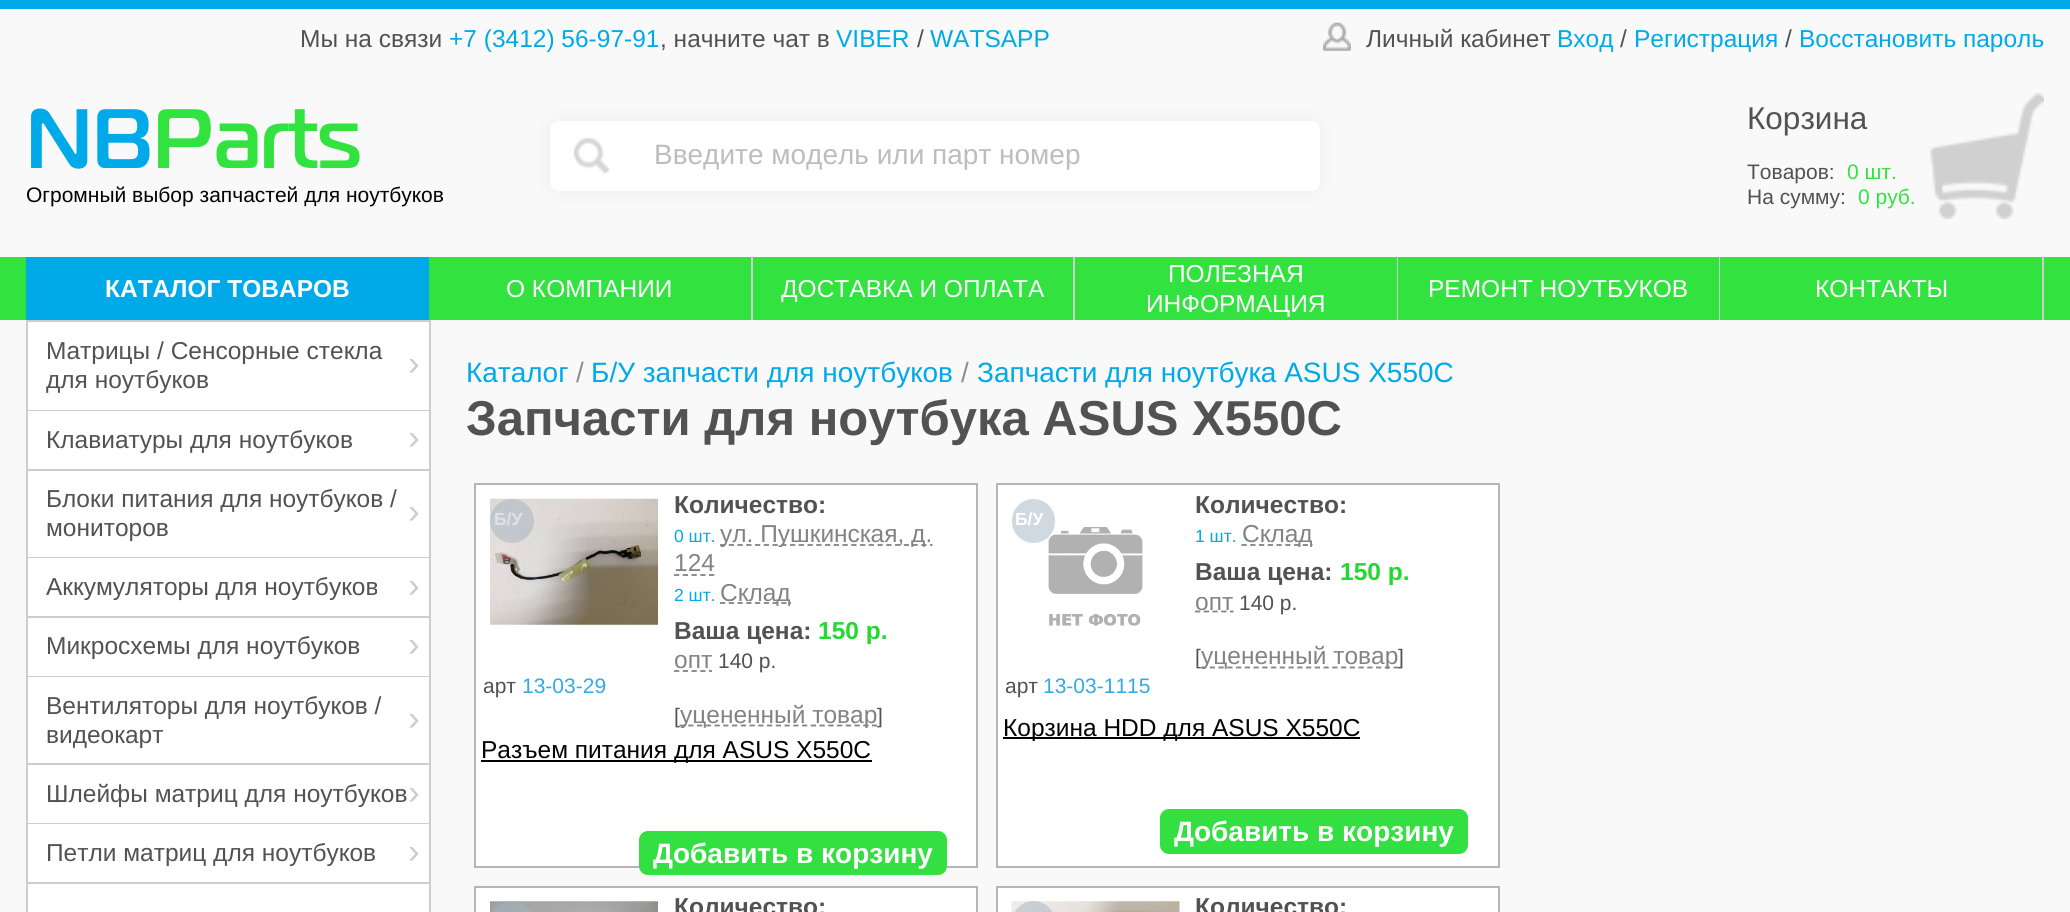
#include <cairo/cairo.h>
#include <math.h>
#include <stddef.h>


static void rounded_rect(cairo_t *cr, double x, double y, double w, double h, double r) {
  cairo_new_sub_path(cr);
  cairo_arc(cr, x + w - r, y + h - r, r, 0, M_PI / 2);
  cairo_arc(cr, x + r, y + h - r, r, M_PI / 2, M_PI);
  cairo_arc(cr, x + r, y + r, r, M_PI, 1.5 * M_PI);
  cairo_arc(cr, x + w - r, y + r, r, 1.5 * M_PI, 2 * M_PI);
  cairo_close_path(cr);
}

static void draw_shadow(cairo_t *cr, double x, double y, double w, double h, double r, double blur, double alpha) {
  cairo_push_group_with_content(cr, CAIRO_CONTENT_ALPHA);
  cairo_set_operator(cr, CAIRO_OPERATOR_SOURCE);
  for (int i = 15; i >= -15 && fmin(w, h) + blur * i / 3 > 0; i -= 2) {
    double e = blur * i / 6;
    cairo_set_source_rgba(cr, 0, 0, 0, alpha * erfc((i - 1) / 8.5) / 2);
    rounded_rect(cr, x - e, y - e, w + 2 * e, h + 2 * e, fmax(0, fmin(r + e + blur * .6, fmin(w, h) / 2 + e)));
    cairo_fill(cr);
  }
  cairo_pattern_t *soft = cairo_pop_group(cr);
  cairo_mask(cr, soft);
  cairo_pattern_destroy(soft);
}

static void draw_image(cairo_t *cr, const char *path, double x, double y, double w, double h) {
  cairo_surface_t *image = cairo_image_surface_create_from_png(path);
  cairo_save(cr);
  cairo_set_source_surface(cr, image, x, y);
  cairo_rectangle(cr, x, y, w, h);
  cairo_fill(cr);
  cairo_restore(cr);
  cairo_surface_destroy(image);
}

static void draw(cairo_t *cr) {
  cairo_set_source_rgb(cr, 249 / 255.0, 249 / 255.0, 249 / 255.0);
  cairo_paint(cr);
  cairo_set_source_rgb(cr, 0, 170 / 255.0, 232 / 255.0);
  cairo_rectangle(cr, 0, 0, 2070, 9);
  cairo_fill(cr);
  draw_image(cr, "images/1.png", 1323, 22, 28, 29);
  cairo_set_source_rgb(cr, 0, 0, 0);
  draw_shadow(cr, 550, 121, 770, 70, 9, 9, 0.05);
  cairo_set_source_rgb(cr, 1, 1, 1);
  rounded_rect(cr, 550, 121, 770, 70, 9);
  cairo_fill(cr);
  draw_image(cr, "images/2.png", 574, 138, 36, 36);
  draw_image(cr, "images/3.png", 1930, 92, 114, 127);
  cairo_set_source_rgb(cr, 50 / 255.0, 227 / 255.0, 64 / 255.0);
  cairo_rectangle(cr, 0, 257, 2070, 63);
  cairo_fill(cr);
  cairo_set_source_rgb(cr, 0, 170 / 255.0, 232 / 255.0);
  cairo_rectangle(cr, 26, 257, 403, 63);
  cairo_fill(cr);
  cairo_set_source_rgb(cr, 205 / 255.0, 205 / 255.0, 205 / 255.0);
  cairo_rectangle(cr, 751, 257, 2, 63);
  cairo_fill(cr);
  cairo_rectangle(cr, 1073, 257, 2, 63);
  cairo_fill(cr);
  cairo_rectangle(cr, 1397, 257, 1, 63);
  cairo_fill(cr);
  cairo_rectangle(cr, 1719, 257, 1, 63);
  cairo_fill(cr);
  cairo_rectangle(cr, 2042, 257, 2, 63);
  cairo_fill(cr);
  cairo_rectangle(cr, 26, 320, 405, 2);
  cairo_fill(cr);
  cairo_rectangle(cr, 429, 320, 2, 592);
  cairo_fill(cr);
  cairo_rectangle(cr, 26, 320, 2, 592);
  cairo_fill(cr);
  cairo_set_source_rgb(cr, 1, 1, 1);
  cairo_rectangle(cr, 28, 322, 401, 88);
  cairo_fill(cr);
  cairo_set_source_rgb(cr, 205 / 255.0, 205 / 255.0, 205 / 255.0);
  cairo_rectangle(cr, 28, 410, 401, 1);
  cairo_fill(cr);
  cairo_set_source_rgb(cr, 1, 1, 1);
  cairo_rectangle(cr, 28, 411, 401, 58);
  cairo_fill(cr);
  cairo_set_source_rgb(cr, 205 / 255.0, 205 / 255.0, 205 / 255.0);
  cairo_rectangle(cr, 28, 469, 401, 2);
  cairo_fill(cr);
  cairo_set_source_rgb(cr, 1, 1, 1);
  cairo_rectangle(cr, 28, 471, 401, 86);
  cairo_fill(cr);
  cairo_set_source_rgb(cr, 205 / 255.0, 205 / 255.0, 205 / 255.0);
  cairo_rectangle(cr, 28, 557, 401, 1);
  cairo_fill(cr);
  cairo_set_source_rgb(cr, 1, 1, 1);
  cairo_rectangle(cr, 28, 558, 401, 58);
  cairo_fill(cr);
  cairo_set_source_rgb(cr, 205 / 255.0, 205 / 255.0, 205 / 255.0);
  cairo_rectangle(cr, 28, 616, 401, 2);
  cairo_fill(cr);
  cairo_set_source_rgb(cr, 1, 1, 1);
  cairo_rectangle(cr, 28, 618, 401, 58);
  cairo_fill(cr);
  cairo_set_source_rgb(cr, 205 / 255.0, 205 / 255.0, 205 / 255.0);
  cairo_rectangle(cr, 28, 676, 401, 1);
  cairo_fill(cr);
  cairo_set_source_rgb(cr, 1, 1, 1);
  cairo_rectangle(cr, 28, 677, 401, 86);
  cairo_fill(cr);
  cairo_set_source_rgb(cr, 205 / 255.0, 205 / 255.0, 205 / 255.0);
  cairo_rectangle(cr, 28, 763, 401, 2);
  cairo_fill(cr);
  cairo_set_source_rgb(cr, 1, 1, 1);
  cairo_rectangle(cr, 28, 765, 401, 58);
  cairo_fill(cr);
  cairo_set_source_rgb(cr, 205 / 255.0, 205 / 255.0, 205 / 255.0);
  cairo_rectangle(cr, 28, 823, 401, 1);
  cairo_fill(cr);
  cairo_set_source_rgb(cr, 1, 1, 1);
  cairo_rectangle(cr, 28, 824, 401, 58);
  cairo_fill(cr);
  cairo_set_source_rgb(cr, 205 / 255.0, 205 / 255.0, 205 / 255.0);
  cairo_rectangle(cr, 28, 882, 401, 2);
  cairo_fill(cr);
  cairo_set_source_rgb(cr, 1, 1, 1);
  cairo_rectangle(cr, 28, 884, 401, 28);
  cairo_fill(cr);
  cairo_rectangle(cr, 475, 484, 502, 383);
  cairo_fill_preserve(cr);
  cairo_set_source_rgb(cr, 182 / 255.0, 182 / 255.0, 182 / 255.0);
  cairo_stroke(cr);
  draw_image(cr, "images/4.png", 490, 498, 168, 127);
  cairo_set_source_rgba(cr, 162 / 255.0, 178 / 255.0, 192 / 255.0, 0.5);
  cairo_arc(cr, 512, 521, 22, 0, 2 * M_PI);
  cairo_fill(cr);
  cairo_new_path(cr);
  cairo_move_to(cr, 720, 545);
  cairo_line_to(cr, 932.5, 545);
  cairo_set_source_rgb(cr, 131 / 255.0, 131 / 255.0, 131 / 255.0);
  cairo_set_line_width(cr, 1.8);
  cairo_set_dash(cr, (double[]){5.25, 3.5}, 2, 0);
  cairo_stroke(cr);
  cairo_new_path(cr);
  cairo_move_to(cr, 674, 575);
  cairo_line_to(cr, 714.5, 575);
  cairo_stroke(cr);
  cairo_new_path(cr);
  cairo_move_to(cr, 720, 603);
  cairo_line_to(cr, 791, 603);
  cairo_stroke(cr);
  cairo_new_path(cr);
  cairo_move_to(cr, 674, 671);
  cairo_line_to(cr, 712, 671);
  cairo_stroke(cr);
  cairo_set_source_rgb(cr, 0, 0, 0);
  cairo_rectangle(cr, 481, 760, 391, 2);
  cairo_fill(cr);
  cairo_set_source_rgb(cr, 52 / 255.0, 223 / 255.0, 65 / 255.0);
  rounded_rect(cr, 639, 831, 308, 44, 9);
  cairo_fill(cr);
  cairo_set_source_rgb(cr, 1, 1, 1);
  cairo_rectangle(cr, 997, 484, 502, 383);
  cairo_fill_preserve(cr);
  cairo_set_source_rgb(cr, 182 / 255.0, 182 / 255.0, 182 / 255.0);
  cairo_set_line_width(cr, 2);
  cairo_set_dash(cr, NULL, 0, 0);
  cairo_stroke(cr);
  draw_image(cr, "images/5.png", 1048, 527, 95, 99);
  cairo_set_source_rgb(cr, 209 / 255.0, 217 / 255.0, 224 / 255.0);
  rounded_rect(cr, 1012, 499, 43, 44, 21.5);
  cairo_fill(cr);
  cairo_new_path(cr);
  cairo_move_to(cr, 1241.5, 545);
  cairo_line_to(cr, 1312.5, 545);
  cairo_set_source_rgb(cr, 131 / 255.0, 131 / 255.0, 131 / 255.0);
  cairo_set_line_width(cr, 1.8);
  cairo_set_dash(cr, (double[]){5.25, 3.5}, 2, 0);
  cairo_stroke(cr);
  cairo_new_path(cr);
  cairo_move_to(cr, 1195, 611.5);
  cairo_line_to(cr, 1233.5, 611.5);
  cairo_stroke(cr);
  cairo_new_path(cr);
  cairo_move_to(cr, 1201, 667.5);
  cairo_line_to(cr, 1398.5, 667.5);
  cairo_stroke(cr);
  cairo_set_source_rgb(cr, 0, 0, 0);
  cairo_rectangle(cr, 1003, 737, 357, 2);
  cairo_fill(cr);
  cairo_set_source_rgb(cr, 52 / 255.0, 223 / 255.0, 65 / 255.0);
  rounded_rect(cr, 1160, 809, 308, 45, 9);
  cairo_fill(cr);
  cairo_set_source_rgb(cr, 1, 1, 1);
  cairo_rectangle(cr, 475, 887, 502, 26);
  cairo_fill_preserve(cr);
  cairo_set_source_rgb(cr, 182 / 255.0, 182 / 255.0, 182 / 255.0);
  cairo_set_line_width(cr, 2);
  cairo_set_dash(cr, NULL, 0, 0);
  cairo_stroke(cr);
  draw_image(cr, "images/6.png", 490, 901, 168, 11);
  cairo_set_source_rgba(cr, 162 / 255.0, 178 / 255.0, 192 / 255.0, 0.5);
  rounded_rect(cr, 490, 901, 44, 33, 22);
  cairo_fill(cr);
  cairo_set_source_rgb(cr, 1, 1, 1);
  cairo_rectangle(cr, 997, 887, 502, 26);
  cairo_fill_preserve(cr);
  cairo_set_source_rgb(cr, 182 / 255.0, 182 / 255.0, 182 / 255.0);
  cairo_stroke(cr);
  draw_image(cr, "images/7.png", 1011, 901, 169, 11);
  cairo_set_source_rgba(cr, 162 / 255.0, 178 / 255.0, 192 / 255.0, 0.5);
  rounded_rect(cr, 1012, 901, 43, 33, 21.5);
  cairo_fill(cr);
  cairo_select_font_face(cr, "Liberation Sans", CAIRO_FONT_SLANT_NORMAL, CAIRO_FONT_WEIGHT_NORMAL);
  cairo_set_font_size(cr, 24.5);
  cairo_set_source_rgb(cr, 82 / 255.0, 82 / 255.0, 82 / 255.0);
  cairo_move_to(cr, 300, 47);
  cairo_show_text(cr, "Мы на связи");
  cairo_set_source_rgb(cr, 0, 170 / 255.0, 232 / 255.0);
  cairo_move_to(cr, 449, 47);
  cairo_show_text(cr, "+7 (3412) 56-97-91");
  cairo_set_source_rgb(cr, 82 / 255.0, 82 / 255.0, 82 / 255.0);
  cairo_move_to(cr, 660, 47);
  cairo_show_text(cr, ", начните чат в");
  cairo_set_source_rgb(cr, 0, 170 / 255.0, 232 / 255.0);
  cairo_move_to(cr, 836, 47);
  cairo_show_text(cr, "VIBER");
  cairo_set_source_rgb(cr, 82 / 255.0, 82 / 255.0, 82 / 255.0);
  cairo_move_to(cr, 917, 47);
  cairo_show_text(cr, "/");
  cairo_set_source_rgb(cr, 0, 170 / 255.0, 232 / 255.0);
  cairo_move_to(cr, 930, 47);
  cairo_show_text(cr, "WATSAPP");
  cairo_set_source_rgb(cr, 82 / 255.0, 82 / 255.0, 82 / 255.0);
  cairo_move_to(cr, 1366, 47);
  cairo_show_text(cr, "Личный кабинет");
  cairo_set_source_rgb(cr, 0, 170 / 255.0, 232 / 255.0);
  cairo_move_to(cr, 1557, 47);
  cairo_show_text(cr, "Вход");
  cairo_set_source_rgb(cr, 82 / 255.0, 82 / 255.0, 82 / 255.0);
  cairo_move_to(cr, 1620, 47);
  cairo_show_text(cr, "/");
  cairo_set_source_rgb(cr, 0, 170 / 255.0, 232 / 255.0);
  cairo_move_to(cr, 1634, 47);
  cairo_show_text(cr, "Регистрация");
  cairo_set_source_rgb(cr, 82 / 255.0, 82 / 255.0, 82 / 255.0);
  cairo_move_to(cr, 1785, 47);
  cairo_show_text(cr, "/");
  cairo_set_source_rgb(cr, 0, 170 / 255.0, 232 / 255.0);
  cairo_move_to(cr, 1799, 47);
  cairo_show_text(cr, "Восстановить пароль");
  cairo_select_font_face(cr, "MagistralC", CAIRO_FONT_SLANT_NORMAL, CAIRO_FONT_WEIGHT_BOLD);
  cairo_set_font_size(cr, 84);
  cairo_move_to(cr, 26, 168);
  cairo_show_text(cr, "NB");
  cairo_set_source_rgb(cr, 50 / 255.0, 227 / 255.0, 64 / 255.0);
  cairo_move_to(cr, 153, 168);
  cairo_show_text(cr, "Parts");
  cairo_select_font_face(cr, "Liberation Sans", CAIRO_FONT_SLANT_NORMAL, CAIRO_FONT_WEIGHT_NORMAL);
  cairo_set_font_size(cr, 21);
  cairo_set_source_rgb(cr, 3 / 255.0, 3 / 255.0, 3 / 255.0);
  cairo_move_to(cr, 26, 202);
  cairo_show_text(cr, "Огромный выбор запчастей для ноутбуков");
  cairo_set_font_size(cr, 28);
  cairo_set_source_rgb(cr, 189 / 255.0, 189 / 255.0, 189 / 255.0);
  cairo_move_to(cr, 654, 164);
  cairo_show_text(cr, "Введите модель или парт номер");
  cairo_set_font_size(cr, 31.5);
  cairo_set_source_rgb(cr, 82 / 255.0, 82 / 255.0, 82 / 255.0);
  cairo_move_to(cr, 1747, 129);
  cairo_show_text(cr, "Корзина");
  cairo_set_font_size(cr, 21);
  cairo_move_to(cr, 1747, 179);
  cairo_show_text(cr, "Товаров:");
  cairo_set_source_rgb(cr, 50 / 255.0, 227 / 255.0, 64 / 255.0);
  cairo_move_to(cr, 1847, 179);
  cairo_show_text(cr, "0 шт.");
  cairo_set_source_rgb(cr, 82 / 255.0, 82 / 255.0, 82 / 255.0);
  cairo_move_to(cr, 1747, 204);
  cairo_show_text(cr, "На сумму:");
  cairo_set_source_rgb(cr, 50 / 255.0, 227 / 255.0, 64 / 255.0);
  cairo_move_to(cr, 1858, 204);
  cairo_show_text(cr, "0 руб.");
  cairo_select_font_face(cr, "Liberation Sans", CAIRO_FONT_SLANT_NORMAL, CAIRO_FONT_WEIGHT_BOLD);
  cairo_set_font_size(cr, 24.5);
  cairo_set_source_rgb(cr, 1, 1, 1);
  cairo_move_to(cr, 105, 297);
  cairo_show_text(cr, "КАТАЛОГ ТОВАРОВ");
  cairo_select_font_face(cr, "Liberation Sans", CAIRO_FONT_SLANT_NORMAL, CAIRO_FONT_WEIGHT_NORMAL);
  cairo_move_to(cr, 506, 297);
  cairo_show_text(cr, "О КОМПАНИИ");
  cairo_move_to(cr, 781, 297);
  cairo_show_text(cr, "ДОСТАВКА И ОПЛАТА");
  cairo_move_to(cr, 1168, 282);
  cairo_show_text(cr, "ПОЛЕЗНАЯ");
  cairo_move_to(cr, 1146, 312);
  cairo_show_text(cr, "ИНФОРМАЦИЯ");
  cairo_move_to(cr, 1428, 297);
  cairo_show_text(cr, "РЕМОНТ НОУТБУКОВ");
  cairo_move_to(cr, 1815, 297);
  cairo_show_text(cr, "КОНТАКТЫ");
  cairo_set_source_rgb(cr, 82 / 255.0, 82 / 255.0, 82 / 255.0);
  cairo_move_to(cr, 46, 359);
  cairo_show_text(cr, "Матрицы / Сенсорные стекла");
  cairo_set_font_size(cr, 35);
  cairo_set_source_rgb(cr, 205 / 255.0, 205 / 255.0, 205 / 255.0);
  cairo_move_to(cr, 408, 375);
  cairo_show_text(cr, "›");
  cairo_set_font_size(cr, 24.5);
  cairo_set_source_rgb(cr, 82 / 255.0, 82 / 255.0, 82 / 255.0);
  cairo_move_to(cr, 46, 388);
  cairo_show_text(cr, "для ноутбуков");
  cairo_move_to(cr, 46, 448);
  cairo_show_text(cr, "Клавиатуры для ноутбуков");
  cairo_set_font_size(cr, 35);
  cairo_set_source_rgb(cr, 205 / 255.0, 205 / 255.0, 205 / 255.0);
  cairo_move_to(cr, 408, 449);
  cairo_show_text(cr, "›");
  cairo_set_font_size(cr, 24.5);
  cairo_set_source_rgb(cr, 82 / 255.0, 82 / 255.0, 82 / 255.0);
  cairo_move_to(cr, 46, 507);
  cairo_show_text(cr, "Блоки питания для ноутбуков /");
  cairo_set_font_size(cr, 35);
  cairo_set_source_rgb(cr, 205 / 255.0, 205 / 255.0, 205 / 255.0);
  cairo_move_to(cr, 408, 523);
  cairo_show_text(cr, "›");
  cairo_set_font_size(cr, 24.5);
  cairo_set_source_rgb(cr, 82 / 255.0, 82 / 255.0, 82 / 255.0);
  cairo_move_to(cr, 46, 536);
  cairo_show_text(cr, "мониторов");
  cairo_move_to(cr, 46, 595);
  cairo_show_text(cr, "Аккумуляторы для ноутбуков");
  cairo_set_font_size(cr, 35);
  cairo_set_source_rgb(cr, 205 / 255.0, 205 / 255.0, 205 / 255.0);
  cairo_move_to(cr, 408, 597);
  cairo_show_text(cr, "›");
  cairo_set_font_size(cr, 24.5);
  cairo_set_source_rgb(cr, 82 / 255.0, 82 / 255.0, 82 / 255.0);
  cairo_move_to(cr, 46, 654);
  cairo_show_text(cr, "Микросхемы для ноутбуков");
  cairo_set_font_size(cr, 35);
  cairo_set_source_rgb(cr, 205 / 255.0, 205 / 255.0, 205 / 255.0);
  cairo_move_to(cr, 408, 656);
  cairo_show_text(cr, "›");
  cairo_set_font_size(cr, 24.5);
  cairo_set_source_rgb(cr, 82 / 255.0, 82 / 255.0, 82 / 255.0);
  cairo_move_to(cr, 46, 714);
  cairo_show_text(cr, "Вентиляторы для ноутбуков /");
  cairo_set_font_size(cr, 35);
  cairo_set_source_rgb(cr, 205 / 255.0, 205 / 255.0, 205 / 255.0);
  cairo_move_to(cr, 408, 730);
  cairo_show_text(cr, "›");
  cairo_set_font_size(cr, 24.5);
  cairo_set_source_rgb(cr, 82 / 255.0, 82 / 255.0, 82 / 255.0);
  cairo_move_to(cr, 46, 743);
  cairo_show_text(cr, "видеокарт");
  cairo_move_to(cr, 46, 802);
  cairo_show_text(cr, "Шлейфы матриц для ноутбуков");
  cairo_set_font_size(cr, 35);
  cairo_set_source_rgb(cr, 205 / 255.0, 205 / 255.0, 205 / 255.0);
  cairo_move_to(cr, 408, 804);
  cairo_show_text(cr, "›");
  cairo_set_font_size(cr, 24.5);
  cairo_set_source_rgb(cr, 82 / 255.0, 82 / 255.0, 82 / 255.0);
  cairo_move_to(cr, 46, 861);
  cairo_show_text(cr, "Петли матриц для ноутбуков");
  cairo_set_font_size(cr, 35);
  cairo_set_source_rgb(cr, 205 / 255.0, 205 / 255.0, 205 / 255.0);
  cairo_move_to(cr, 408, 863);
  cairo_show_text(cr, "›");
  cairo_set_font_size(cr, 28);
  cairo_set_source_rgb(cr, 0, 170 / 255.0, 232 / 255.0);
  cairo_move_to(cr, 466, 382);
  cairo_show_text(cr, "Каталог");
  cairo_set_source_rgb(cr, 142 / 255.0, 145 / 255.0, 147 / 255.0);
  cairo_move_to(cr, 576, 382);
  cairo_show_text(cr, "/");
  cairo_set_source_rgb(cr, 0, 170 / 255.0, 232 / 255.0);
  cairo_move_to(cr, 591, 382);
  cairo_show_text(cr, "Б/У запчасти для ноутбуков");
  cairo_set_source_rgb(cr, 142 / 255.0, 145 / 255.0, 147 / 255.0);
  cairo_move_to(cr, 961, 382);
  cairo_show_text(cr, "/");
  cairo_set_source_rgb(cr, 0, 170 / 255.0, 232 / 255.0);
  cairo_move_to(cr, 977, 382);
  cairo_show_text(cr, "Запчасти для ноутбука ASUS X550C");
  cairo_select_font_face(cr, "Liberation Sans", CAIRO_FONT_SLANT_NORMAL, CAIRO_FONT_WEIGHT_BOLD);
  cairo_set_font_size(cr, 49);
  cairo_set_source_rgb(cr, 82 / 255.0, 82 / 255.0, 82 / 255.0);
  cairo_move_to(cr, 466, 435);
  cairo_show_text(cr, "Запчасти для ноутбука ASUS X550C");
  cairo_set_font_size(cr, 17.5);
  cairo_set_source_rgb(cr, 224 / 255.0, 227 / 255.0, 230 / 255.0);
  cairo_move_to(cr, 494, 525);
  cairo_show_text(cr, "Б/У");
  cairo_select_font_face(cr, "Liberation Sans", CAIRO_FONT_SLANT_NORMAL, CAIRO_FONT_WEIGHT_NORMAL);
  cairo_set_font_size(cr, 21);
  cairo_set_source_rgb(cr, 82 / 255.0, 82 / 255.0, 82 / 255.0);
  cairo_move_to(cr, 483, 693);
  cairo_show_text(cr, "арт");
  cairo_set_source_rgb(cr, 51 / 255.0, 170 / 255.0, 232 / 255.0);
  cairo_move_to(cr, 522, 693);
  cairo_show_text(cr, "13-03-29");
  cairo_select_font_face(cr, "Liberation Sans", CAIRO_FONT_SLANT_NORMAL, CAIRO_FONT_WEIGHT_BOLD);
  cairo_set_font_size(cr, 24.5);
  cairo_set_source_rgb(cr, 82 / 255.0, 82 / 255.0, 82 / 255.0);
  cairo_move_to(cr, 674, 513);
  cairo_show_text(cr, "Количество:");
  cairo_select_font_face(cr, "Liberation Sans", CAIRO_FONT_SLANT_NORMAL, CAIRO_FONT_WEIGHT_NORMAL);
  cairo_set_font_size(cr, 17.5);
  cairo_set_source_rgb(cr, 0, 170 / 255.0, 232 / 255.0);
  cairo_move_to(cr, 674, 542);
  cairo_show_text(cr, "0 шт.");
  cairo_set_font_size(cr, 24.5);
  cairo_set_source_rgb(cr, 131 / 255.0, 131 / 255.0, 131 / 255.0);
  cairo_move_to(cr, 720, 542);
  cairo_show_text(cr, "ул. Пушкинская, д.");
  cairo_move_to(cr, 674, 571);
  cairo_show_text(cr, "124");
  cairo_set_font_size(cr, 17.5);
  cairo_set_source_rgb(cr, 0, 170 / 255.0, 232 / 255.0);
  cairo_move_to(cr, 674, 601);
  cairo_show_text(cr, "2 шт.");
  cairo_set_font_size(cr, 24.5);
  cairo_set_source_rgb(cr, 131 / 255.0, 131 / 255.0, 131 / 255.0);
  cairo_move_to(cr, 720, 601);
  cairo_show_text(cr, "Склад");
  cairo_select_font_face(cr, "Liberation Sans", CAIRO_FONT_SLANT_NORMAL, CAIRO_FONT_WEIGHT_BOLD);
  cairo_set_source_rgb(cr, 82 / 255.0, 82 / 255.0, 82 / 255.0);
  cairo_move_to(cr, 674, 639);
  cairo_show_text(cr, "Ваша цена:");
  cairo_set_source_rgb(cr, 35 / 255.0, 217 / 255.0, 47 / 255.0);
  cairo_move_to(cr, 818, 639);
  cairo_show_text(cr, "150 р.");
  cairo_select_font_face(cr, "Liberation Sans", CAIRO_FONT_SLANT_NORMAL, CAIRO_FONT_WEIGHT_NORMAL);
  cairo_set_source_rgb(cr, 131 / 255.0, 131 / 255.0, 131 / 255.0);
  cairo_move_to(cr, 674, 668);
  cairo_show_text(cr, "опт");
  cairo_set_font_size(cr, 21);
  cairo_set_source_rgb(cr, 82 / 255.0, 82 / 255.0, 82 / 255.0);
  cairo_move_to(cr, 718, 668);
  cairo_show_text(cr, "140 р.");
  cairo_move_to(cr, 674, 723);
  cairo_show_text(cr, "[");
  cairo_new_path(cr);
  cairo_move_to(cr, 679.5, 725.5);
  cairo_line_to(cr, 877, 725.5);
  cairo_set_source_rgb(cr, 131 / 255.0, 131 / 255.0, 131 / 255.0);
  cairo_set_line_width(cr, 1.8);
  cairo_set_dash(cr, (double[]){5.25, 3.5}, 2, 0);
  cairo_stroke(cr);
  cairo_set_font_size(cr, 24.5);
  cairo_move_to(cr, 680, 723);
  cairo_show_text(cr, "уцененный товар");
  cairo_set_font_size(cr, 21);
  cairo_set_source_rgb(cr, 82 / 255.0, 82 / 255.0, 82 / 255.0);
  cairo_move_to(cr, 877, 723);
  cairo_show_text(cr, "]");
  cairo_set_font_size(cr, 24.5);
  cairo_set_source_rgb(cr, 3 / 255.0, 3 / 255.0, 3 / 255.0);
  cairo_move_to(cr, 481, 758);
  cairo_show_text(cr, "Разъем питания для ASUS X550C");
  cairo_select_font_face(cr, "Liberation Sans", CAIRO_FONT_SLANT_NORMAL, CAIRO_FONT_WEIGHT_BOLD);
  cairo_set_font_size(cr, 28);
  cairo_set_source_rgb(cr, 1, 1, 1);
  cairo_move_to(cr, 653, 863);
  cairo_show_text(cr, "Добавить в корзину");
  cairo_set_font_size(cr, 17.5);
  cairo_move_to(cr, 1015, 525);
  cairo_show_text(cr, "Б/У");
  cairo_select_font_face(cr, "Liberation Sans", CAIRO_FONT_SLANT_NORMAL, CAIRO_FONT_WEIGHT_NORMAL);
  cairo_set_font_size(cr, 21);
  cairo_set_source_rgb(cr, 82 / 255.0, 82 / 255.0, 82 / 255.0);
  cairo_move_to(cr, 1005, 693);
  cairo_show_text(cr, "арт");
  cairo_set_source_rgb(cr, 51 / 255.0, 170 / 255.0, 232 / 255.0);
  cairo_move_to(cr, 1043, 693);
  cairo_show_text(cr, "13-03-1115");
  cairo_select_font_face(cr, "Liberation Sans", CAIRO_FONT_SLANT_NORMAL, CAIRO_FONT_WEIGHT_BOLD);
  cairo_set_font_size(cr, 24.5);
  cairo_set_source_rgb(cr, 82 / 255.0, 82 / 255.0, 82 / 255.0);
  cairo_move_to(cr, 1195, 513);
  cairo_show_text(cr, "Количество:");
  cairo_select_font_face(cr, "Liberation Sans", CAIRO_FONT_SLANT_NORMAL, CAIRO_FONT_WEIGHT_NORMAL);
  cairo_set_font_size(cr, 17.5);
  cairo_set_source_rgb(cr, 0, 170 / 255.0, 232 / 255.0);
  cairo_move_to(cr, 1195, 542);
  cairo_show_text(cr, "1 шт.");
  cairo_set_font_size(cr, 24.5);
  cairo_set_source_rgb(cr, 131 / 255.0, 131 / 255.0, 131 / 255.0);
  cairo_move_to(cr, 1242, 542);
  cairo_show_text(cr, "Склад");
  cairo_select_font_face(cr, "Liberation Sans", CAIRO_FONT_SLANT_NORMAL, CAIRO_FONT_WEIGHT_BOLD);
  cairo_set_source_rgb(cr, 82 / 255.0, 82 / 255.0, 82 / 255.0);
  cairo_move_to(cr, 1195, 580);
  cairo_show_text(cr, "Ваша цена:");
  cairo_set_source_rgb(cr, 35 / 255.0, 217 / 255.0, 47 / 255.0);
  cairo_move_to(cr, 1340, 580);
  cairo_show_text(cr, "150 р.");
  cairo_select_font_face(cr, "Liberation Sans", CAIRO_FONT_SLANT_NORMAL, CAIRO_FONT_WEIGHT_NORMAL);
  cairo_set_source_rgb(cr, 131 / 255.0, 131 / 255.0, 131 / 255.0);
  cairo_move_to(cr, 1195, 610);
  cairo_show_text(cr, "опт");
  cairo_set_font_size(cr, 21);
  cairo_set_source_rgb(cr, 82 / 255.0, 82 / 255.0, 82 / 255.0);
  cairo_move_to(cr, 1239, 610);
  cairo_show_text(cr, "140 р.");
  cairo_move_to(cr, 1195, 664);
  cairo_show_text(cr, "[");
  cairo_set_font_size(cr, 24.5);
  cairo_set_source_rgb(cr, 131 / 255.0, 131 / 255.0, 131 / 255.0);
  cairo_move_to(cr, 1201, 664);
  cairo_show_text(cr, "уцененный товар");
  cairo_set_font_size(cr, 21);
  cairo_set_source_rgb(cr, 82 / 255.0, 82 / 255.0, 82 / 255.0);
  cairo_move_to(cr, 1398, 664);
  cairo_show_text(cr, "]");
  cairo_set_font_size(cr, 24.5);
  cairo_set_source_rgb(cr, 3 / 255.0, 3 / 255.0, 3 / 255.0);
  cairo_move_to(cr, 1003, 736);
  cairo_show_text(cr, "Корзина HDD для ASUS X550C");
  cairo_select_font_face(cr, "Liberation Sans", CAIRO_FONT_SLANT_NORMAL, CAIRO_FONT_WEIGHT_BOLD);
  cairo_set_font_size(cr, 28);
  cairo_set_source_rgb(cr, 1, 1, 1);
  cairo_move_to(cr, 1174, 841);
  cairo_show_text(cr, "Добавить в корзину");
  cairo_set_font_size(cr, 24.5);
  cairo_set_source_rgb(cr, 82 / 255.0, 82 / 255.0, 82 / 255.0);
  cairo_move_to(cr, 674, 915);
  cairo_show_text(cr, "Количество:");
  cairo_move_to(cr, 1195, 915);
  cairo_show_text(cr, "Количество:");
}

int main(void) {
  cairo_surface_t *surface = cairo_image_surface_create(CAIRO_FORMAT_RGB24, 2070, 912);
  cairo_t *cr = cairo_create(surface);
  cairo_font_options_t *options = cairo_font_options_create();
  cairo_font_options_set_hint_metrics(options, CAIRO_HINT_METRICS_OFF);
  cairo_font_options_set_hint_style(options, CAIRO_HINT_STYLE_NONE);
  cairo_set_font_options(cr, options);
  cairo_set_miter_limit(cr, 4);
  draw(cr);
  cairo_surface_write_to_png(surface, "out.png");
  cairo_font_options_destroy(options);
  cairo_destroy(cr);
  cairo_surface_destroy(surface);
  return 0;
}
